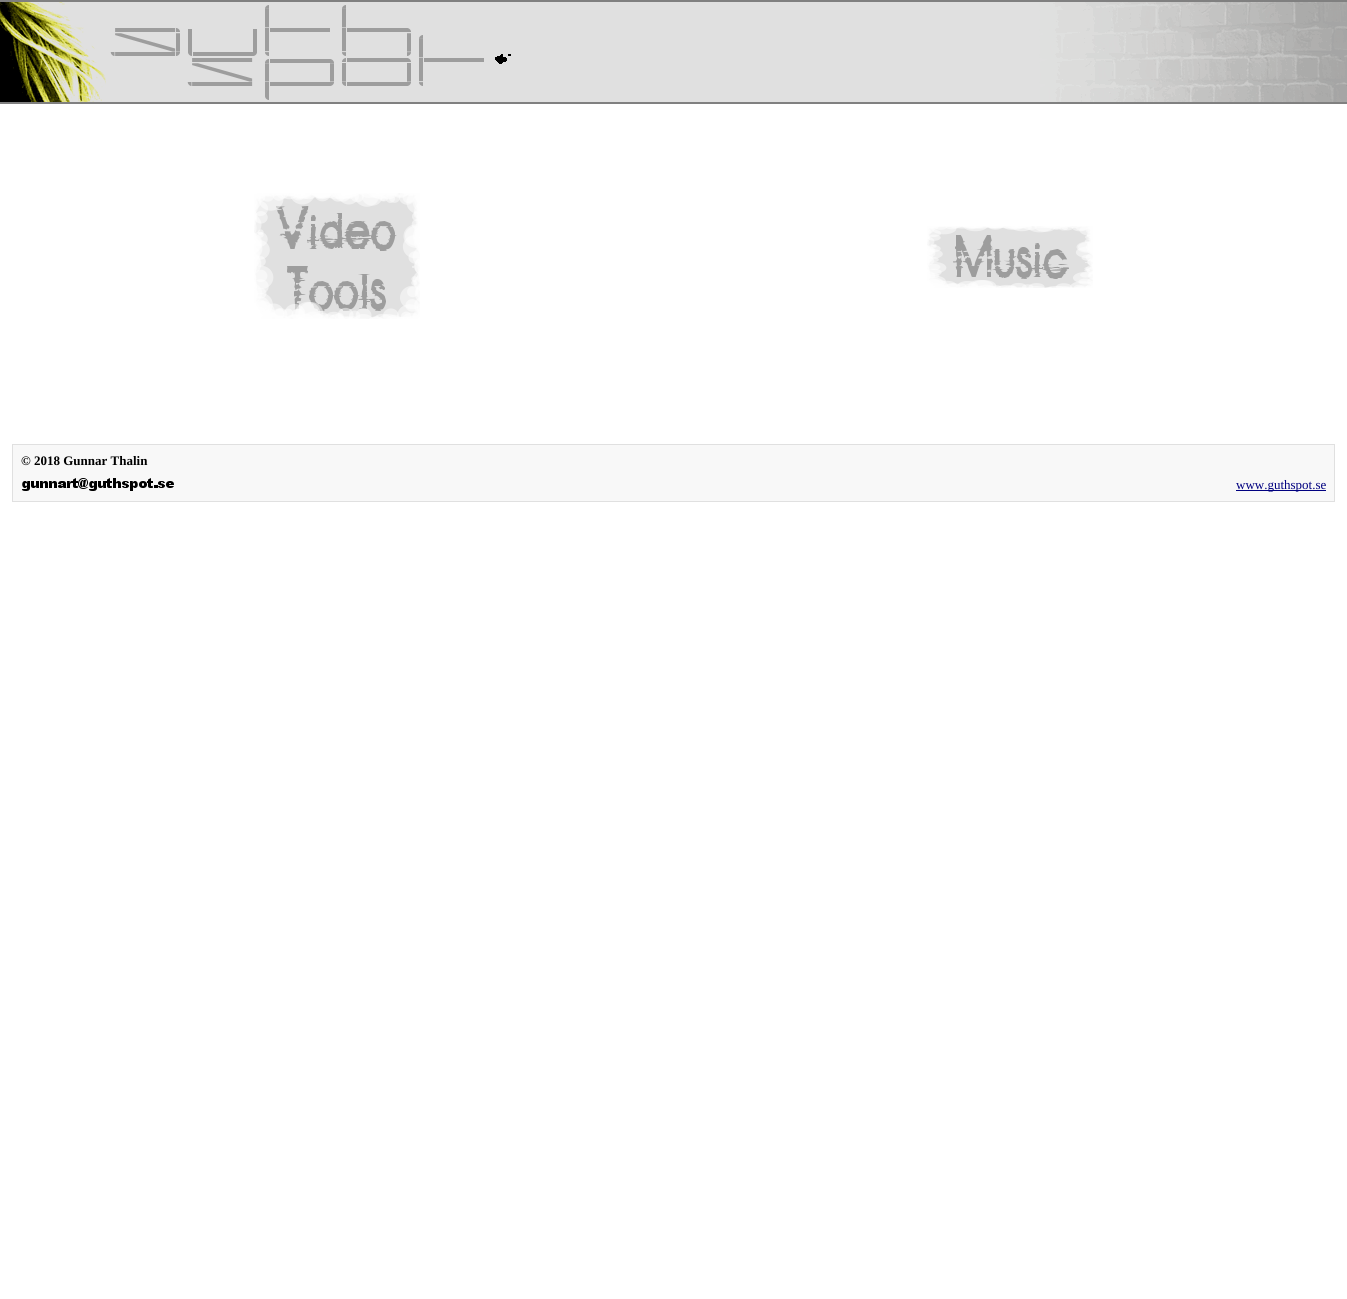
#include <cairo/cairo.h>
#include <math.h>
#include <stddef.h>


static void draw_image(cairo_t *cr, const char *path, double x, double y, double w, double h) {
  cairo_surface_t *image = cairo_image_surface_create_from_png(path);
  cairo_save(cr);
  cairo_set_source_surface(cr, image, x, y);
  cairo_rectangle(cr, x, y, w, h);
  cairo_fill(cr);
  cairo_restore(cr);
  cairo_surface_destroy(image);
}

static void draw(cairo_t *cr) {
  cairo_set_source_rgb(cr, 1, 1, 1);
  cairo_paint(cr);
  draw_image(cr, "images/1.png", 0, 0, 1035, 104);
  draw_image(cr, "images/2.png", 0, 2, 511, 100);
  draw_image(cr, "images/3.png", 1035, 0, 312, 104);
  draw_image(cr, "images/4.png", 254, 193, 166, 126);
  draw_image(cr, "images/5.png", 927, 226, 166, 62);
  cairo_rectangle(cr, 12.5, 444.5, 1322, 57);
  cairo_set_source_rgb(cr, 224 / 255.0, 224 / 255.0, 224 / 255.0);
  cairo_set_line_width(cr, 1);
  cairo_stroke(cr);
  cairo_set_source_rgb(cr, 248 / 255.0, 248 / 255.0, 248 / 255.0);
  cairo_rectangle(cr, 13, 445, 1321, 56);
  cairo_fill(cr);
  draw_image(cr, "images/6.png", 22, 478, 152, 13);
  cairo_set_source_rgb(cr, 0, 0, 128 / 255.0);
  cairo_rectangle(cr, 1236, 490, 90, 1);
  cairo_fill(cr);
  cairo_select_font_face(cr, "Liberation Serif", CAIRO_FONT_SLANT_NORMAL, CAIRO_FONT_WEIGHT_BOLD);
  cairo_set_font_size(cr, 13);
  cairo_set_source_rgb(cr, 0, 0, 0);
  cairo_move_to(cr, 21, 465);
  cairo_show_text(cr, "© 2018 Gunnar Thalin");
  cairo_select_font_face(cr, "Liberation Serif", CAIRO_FONT_SLANT_NORMAL, CAIRO_FONT_WEIGHT_NORMAL);
  cairo_set_source_rgb(cr, 0, 0, 128 / 255.0);
  cairo_move_to(cr, 1236, 489);
  cairo_show_text(cr, "www.guthspot.se");
}

int main(void) {
  cairo_surface_t *surface = cairo_image_surface_create(CAIRO_FORMAT_RGB24, 1347, 1299);
  cairo_t *cr = cairo_create(surface);
  cairo_font_options_t *options = cairo_font_options_create();
  cairo_font_options_set_hint_metrics(options, CAIRO_HINT_METRICS_OFF);
  cairo_font_options_set_hint_style(options, CAIRO_HINT_STYLE_NONE);
  cairo_set_font_options(cr, options);
  cairo_set_miter_limit(cr, 4);
  draw(cr);
  cairo_surface_write_to_png(surface, "out.png");
  cairo_font_options_destroy(options);
  cairo_destroy(cr);
  cairo_surface_destroy(surface);
  return 0;
}
